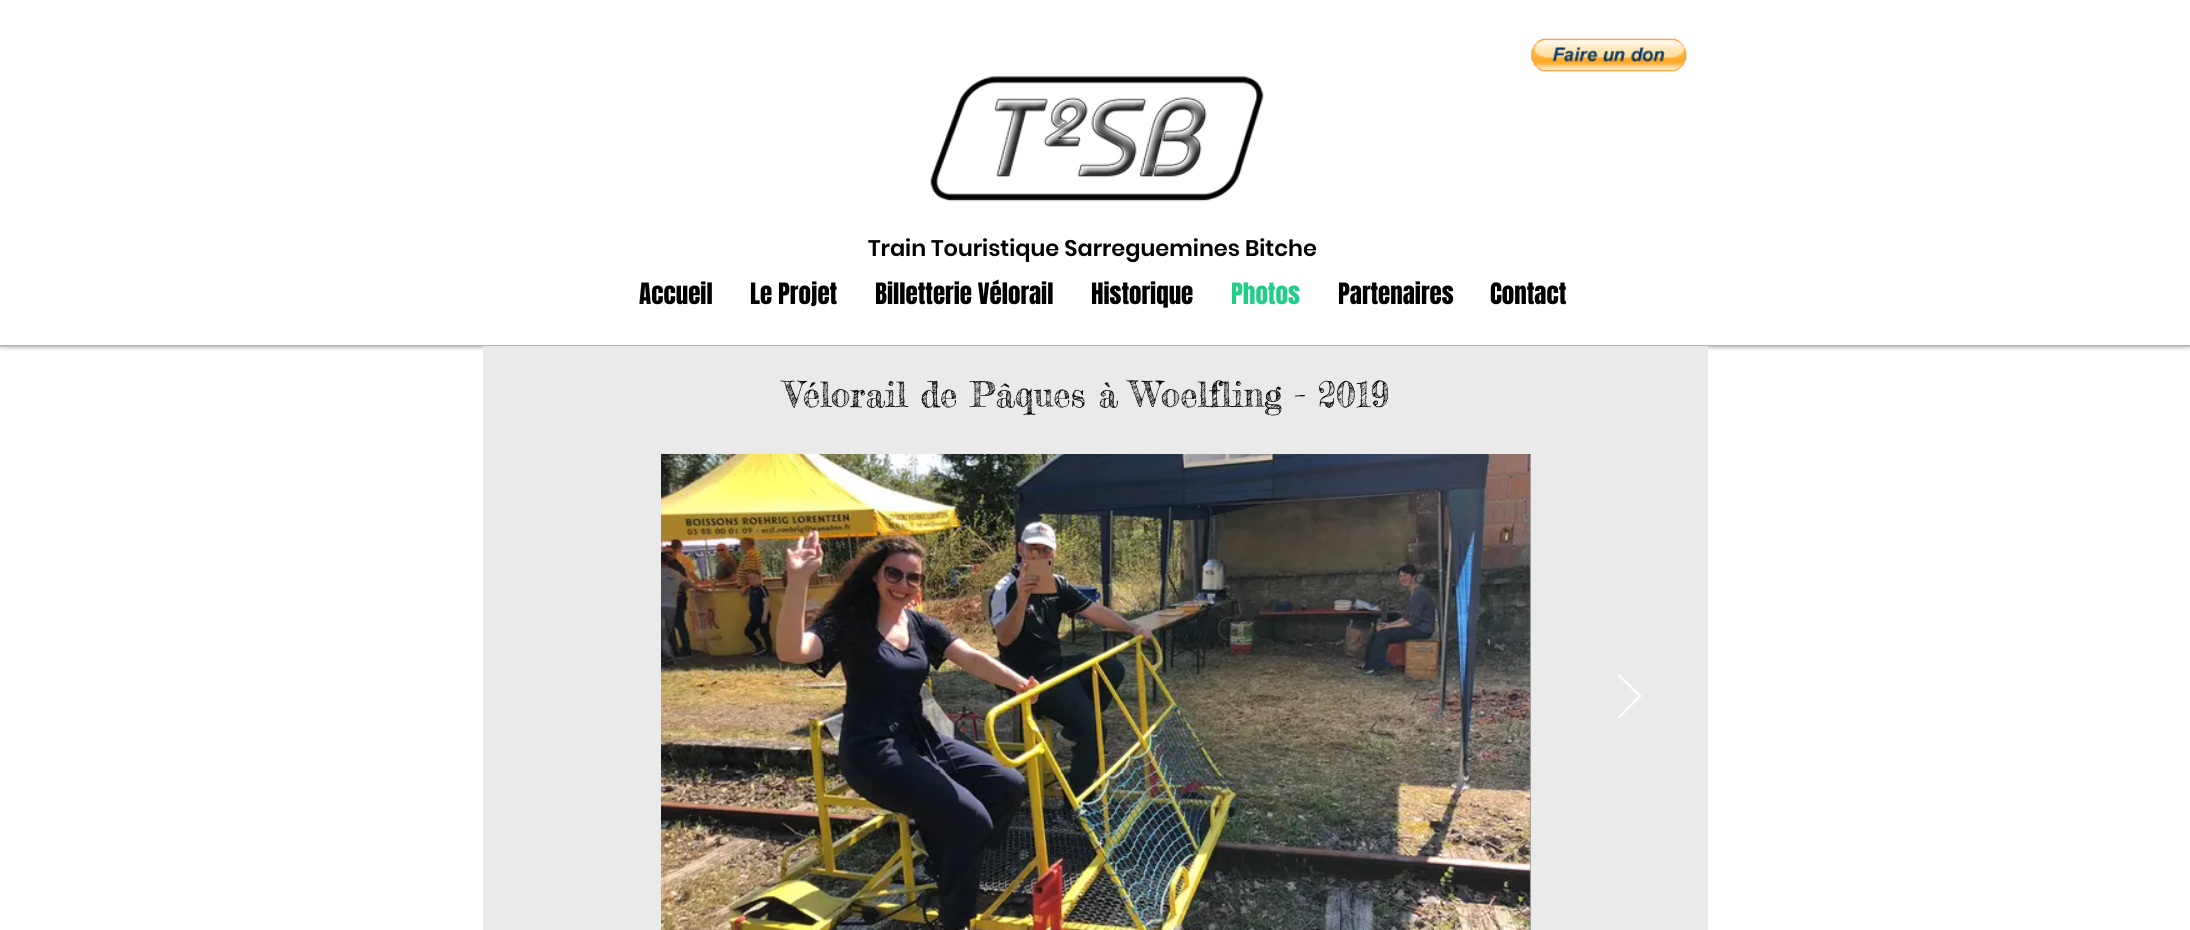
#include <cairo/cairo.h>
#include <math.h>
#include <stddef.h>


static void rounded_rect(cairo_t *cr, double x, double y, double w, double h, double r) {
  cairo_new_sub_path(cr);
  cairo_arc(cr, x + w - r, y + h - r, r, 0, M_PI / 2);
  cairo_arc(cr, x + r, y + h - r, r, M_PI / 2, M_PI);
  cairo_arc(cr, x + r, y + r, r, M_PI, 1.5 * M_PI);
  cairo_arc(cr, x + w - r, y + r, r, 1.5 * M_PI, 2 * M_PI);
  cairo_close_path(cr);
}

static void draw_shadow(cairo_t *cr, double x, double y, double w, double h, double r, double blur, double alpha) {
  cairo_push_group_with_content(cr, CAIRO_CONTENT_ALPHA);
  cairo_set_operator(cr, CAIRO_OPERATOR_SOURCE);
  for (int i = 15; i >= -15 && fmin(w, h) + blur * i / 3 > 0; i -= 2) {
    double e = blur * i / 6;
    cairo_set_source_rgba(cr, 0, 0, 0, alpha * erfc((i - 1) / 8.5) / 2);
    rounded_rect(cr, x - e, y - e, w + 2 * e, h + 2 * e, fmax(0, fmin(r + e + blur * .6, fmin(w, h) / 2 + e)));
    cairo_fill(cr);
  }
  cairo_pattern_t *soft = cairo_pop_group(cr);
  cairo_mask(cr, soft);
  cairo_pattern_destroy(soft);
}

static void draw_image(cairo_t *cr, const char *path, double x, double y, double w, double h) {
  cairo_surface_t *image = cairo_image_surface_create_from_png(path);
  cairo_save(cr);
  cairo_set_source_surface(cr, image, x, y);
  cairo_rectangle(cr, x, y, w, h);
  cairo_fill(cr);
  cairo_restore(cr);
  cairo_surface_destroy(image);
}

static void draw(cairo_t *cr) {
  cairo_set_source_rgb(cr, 1, 1, 1);
  cairo_paint(cr);
  cairo_save(cr);
  cairo_rectangle(cr, 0, 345, 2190, 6);
  cairo_clip(cr);
  cairo_set_source_rgb(cr, 0, 0, 0);
  draw_shadow(cr, 0, 0, 2190, 345, 0, 3, 0.7);
  cairo_restore(cr);
  draw_image(cr, "images/1.png", 1531, 38, 156, 34);
  draw_image(cr, "images/2.png", 930, 76, 334, 126);
  cairo_set_source_rgb(cr, 234 / 255.0, 234 / 255.0, 234 / 255.0);
  cairo_rectangle(cr, 483, 346, 1225, 584);
  cairo_fill(cr);
  cairo_set_source_rgb(cr, 164 / 255.0, 164 / 255.0, 164 / 255.0);
  cairo_rectangle(cr, 1529, 454, 2, 476);
  cairo_fill(cr);
  draw_image(cr, "images/3.png", 661, 454, 870, 476);
  cairo_set_source_rgb(cr, 253 / 255.0, 253 / 255.0, 253 / 255.0);
  cairo_new_path(cr);
  cairo_move_to(cr, 1618, 676);
  cairo_line_to(cr, 1619, 674);
  cairo_line_to(cr, 1642, 696);
  cairo_line_to(cr, 1619, 719);
  cairo_line_to(cr, 1618, 717);
  cairo_line_to(cr, 1638, 696);
  cairo_close_path(cr);
  cairo_fill(cr);
  cairo_select_font_face(cr, "Poppins SemiBold", CAIRO_FONT_SLANT_NORMAL, CAIRO_FONT_WEIGHT_NORMAL);
  cairo_set_font_size(cr, 22.5);
  cairo_set_source_rgb(cr, 0, 0, 0);
  cairo_move_to(cr, 868, 256);
  cairo_show_text(cr, "Train Touristique Sarreguemines Bitche");
  cairo_select_font_face(cr, "Anton", CAIRO_FONT_SLANT_NORMAL, CAIRO_FONT_WEIGHT_NORMAL);
  cairo_set_font_size(cr, 25);
  cairo_move_to(cr, 639, 304);
  cairo_show_text(cr, "Accueil");
  cairo_move_to(cr, 750, 304);
  cairo_show_text(cr, "Le Projet");
  cairo_move_to(cr, 875, 304);
  cairo_show_text(cr, "Billetterie Vélorail");
  cairo_move_to(cr, 1091, 304);
  cairo_show_text(cr, "Historique");
  cairo_set_source_rgb(cr, 32 / 255.0, 206 / 255.0, 136 / 255.0);
  cairo_move_to(cr, 1231, 304);
  cairo_show_text(cr, "Photos");
  cairo_set_source_rgb(cr, 0, 0, 0);
  cairo_move_to(cr, 1338, 304);
  cairo_show_text(cr, "Partenaires");
  cairo_move_to(cr, 1490, 304);
  cairo_show_text(cr, "Contact");
  cairo_select_font_face(cr, "Fredericka the Great", CAIRO_FONT_SLANT_NORMAL, CAIRO_FONT_WEIGHT_NORMAL);
  cairo_set_font_size(cr, 35);
  cairo_move_to(cr, 785, 407);
  cairo_show_text(cr, "Vélorail de Pâques à Woelfling - 2019");
}

int main(void) {
  cairo_surface_t *surface = cairo_image_surface_create(CAIRO_FORMAT_RGB24, 2190, 930);
  cairo_t *cr = cairo_create(surface);
  cairo_font_options_t *options = cairo_font_options_create();
  cairo_font_options_set_hint_metrics(options, CAIRO_HINT_METRICS_OFF);
  cairo_font_options_set_hint_style(options, CAIRO_HINT_STYLE_NONE);
  cairo_set_font_options(cr, options);
  cairo_set_miter_limit(cr, 4);
  draw(cr);
  cairo_surface_write_to_png(surface, "out.png");
  cairo_font_options_destroy(options);
  cairo_destroy(cr);
  cairo_surface_destroy(surface);
  return 0;
}
